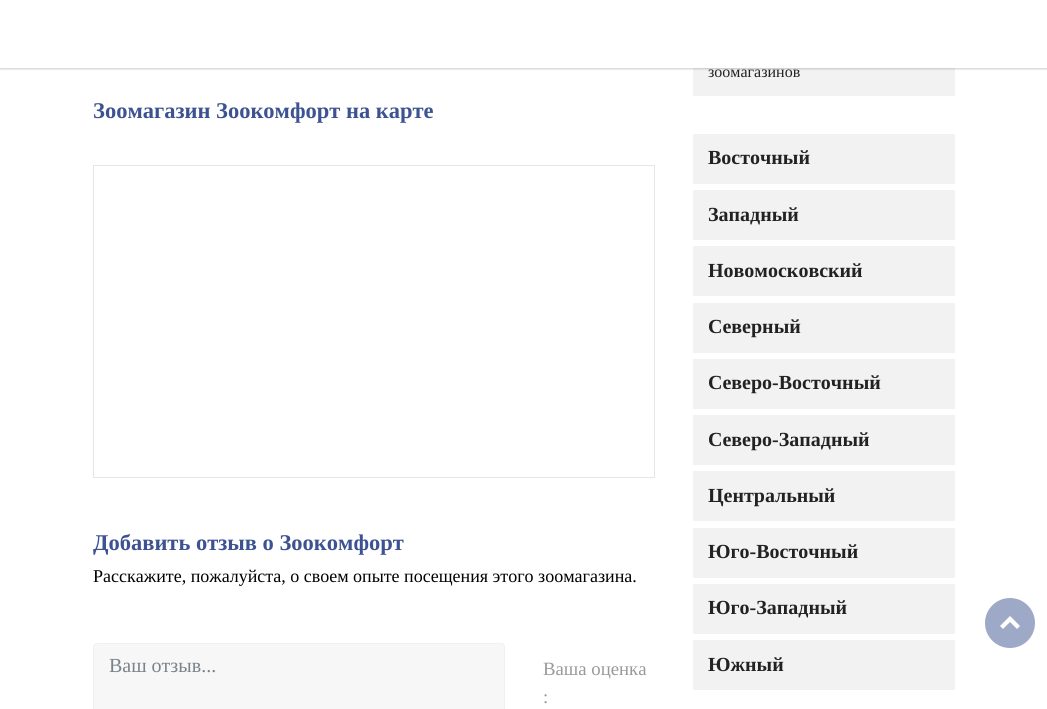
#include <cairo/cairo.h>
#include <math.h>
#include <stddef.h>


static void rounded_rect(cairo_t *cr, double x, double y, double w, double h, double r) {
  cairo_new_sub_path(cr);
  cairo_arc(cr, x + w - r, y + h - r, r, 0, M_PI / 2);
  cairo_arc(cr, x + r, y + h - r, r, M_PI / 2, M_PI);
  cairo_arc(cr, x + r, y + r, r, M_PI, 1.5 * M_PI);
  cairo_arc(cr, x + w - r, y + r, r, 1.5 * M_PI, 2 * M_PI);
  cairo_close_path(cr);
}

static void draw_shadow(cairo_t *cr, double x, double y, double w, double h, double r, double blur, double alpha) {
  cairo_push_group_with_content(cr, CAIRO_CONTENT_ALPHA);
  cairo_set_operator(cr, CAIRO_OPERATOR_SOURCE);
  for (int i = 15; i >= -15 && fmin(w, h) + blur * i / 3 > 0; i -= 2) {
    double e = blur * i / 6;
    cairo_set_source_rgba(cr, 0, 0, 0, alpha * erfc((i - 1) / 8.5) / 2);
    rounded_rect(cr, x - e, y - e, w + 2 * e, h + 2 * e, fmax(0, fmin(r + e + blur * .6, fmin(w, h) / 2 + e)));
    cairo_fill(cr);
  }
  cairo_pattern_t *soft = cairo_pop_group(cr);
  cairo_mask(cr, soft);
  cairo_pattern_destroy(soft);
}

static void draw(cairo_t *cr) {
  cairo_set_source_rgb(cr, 1, 1, 1);
  cairo_paint(cr);
  cairo_set_source_rgb(cr, 242 / 255.0, 242 / 255.0, 242 / 255.0);
  cairo_rectangle(cr, 693, 68, 262, 28);
  cairo_fill(cr);
  cairo_set_source_rgb(cr, 0, 0, 0);
  draw_shadow(cr, 0, -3, 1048, 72, 0, 1, 0.2);
  cairo_set_source_rgb(cr, 1, 1, 1);
  cairo_rectangle(cr, 0, 0, 1047, 68);
  cairo_fill(cr);
  cairo_rectangle(cr, 93.5, 165.5, 561, 312);
  cairo_set_source_rgb(cr, 230 / 255.0, 230 / 255.0, 230 / 255.0);
  cairo_set_line_width(cr, 1);
  cairo_stroke(cr);
  cairo_set_source_rgb(cr, 247 / 255.0, 247 / 255.0, 247 / 255.0);
  rounded_rect(cr, 94, 644, 410, 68, 2.5);
  cairo_fill(cr);
  rounded_rect(cr, 93.5, 643.5, 411, 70, 3.5);
  cairo_set_source_rgb(cr, 240 / 255.0, 240 / 255.0, 240 / 255.0);
  cairo_stroke(cr);
  cairo_set_source_rgb(cr, 242 / 255.0, 242 / 255.0, 242 / 255.0);
  cairo_rectangle(cr, 693, 134, 262, 50);
  cairo_fill(cr);
  cairo_rectangle(cr, 693, 190, 262, 50);
  cairo_fill(cr);
  cairo_rectangle(cr, 693, 246, 262, 50);
  cairo_fill(cr);
  cairo_rectangle(cr, 693, 303, 262, 50);
  cairo_fill(cr);
  cairo_rectangle(cr, 693, 359, 262, 50);
  cairo_fill(cr);
  cairo_rectangle(cr, 693, 415, 262, 50);
  cairo_fill(cr);
  cairo_rectangle(cr, 693, 471, 262, 50);
  cairo_fill(cr);
  cairo_rectangle(cr, 693, 528, 262, 50);
  cairo_fill(cr);
  cairo_rectangle(cr, 693, 584, 262, 50);
  cairo_fill(cr);
  cairo_rectangle(cr, 693, 640, 262, 50);
  cairo_fill(cr);
  cairo_set_source_rgb(cr, 158 / 255.0, 169 / 255.0, 200 / 255.0);
  cairo_arc(cr, 1010, 623, 25, 0, 2 * M_PI);
  cairo_fill(cr);
  cairo_set_source_rgb(cr, 1, 1, 1);
  cairo_new_path(cr);
  cairo_move_to(cr, 1010, 616);
  cairo_line_to(cr, 1020, 626);
  cairo_line_to(cr, 1017, 629);
  cairo_line_to(cr, 1010, 622);
  cairo_line_to(cr, 1003, 629);
  cairo_line_to(cr, 1000, 626);
  cairo_close_path(cr);
  cairo_fill(cr);
  cairo_select_font_face(cr, "Liberation Serif", CAIRO_FONT_SLANT_NORMAL, CAIRO_FONT_WEIGHT_BOLD);
  cairo_set_font_size(cr, 22.5);
  cairo_set_source_rgb(cr, 60 / 255.0, 82 / 255.0, 145 / 255.0);
  cairo_move_to(cr, 93, 118);
  cairo_show_text(cr, "Зоомагазин Зоокомфорт на карте");
  cairo_move_to(cr, 93, 550);
  cairo_show_text(cr, "Добавить отзыв о Зоокомфорт");
  cairo_select_font_face(cr, "Liberation Serif", CAIRO_FONT_SLANT_NORMAL, CAIRO_FONT_WEIGHT_NORMAL);
  cairo_set_font_size(cr, 18);
  cairo_set_source_rgb(cr, 0, 0, 0);
  cairo_move_to(cr, 93, 582);
  cairo_show_text(cr, "Расскажите, пожалуйста, о своем опыте посещения этого зоомагазина.");
  cairo_set_font_size(cr, 20);
  cairo_set_source_rgb(cr, 123 / 255.0, 131 / 255.0, 138 / 255.0);
  cairo_move_to(cr, 109, 672);
  cairo_show_text(cr, "Ваш отзыв...");
  cairo_set_font_size(cr, 18.75);
  cairo_set_source_rgb(cr, 153 / 255.0, 153 / 255.0, 153 / 255.0);
  cairo_move_to(cr, 543, 675);
  cairo_show_text(cr, "Ваша оценка");
  cairo_move_to(cr, 543, 703);
  cairo_show_text(cr, ":");
  cairo_set_font_size(cr, 16);
  cairo_set_source_rgb(cr, 34 / 255.0, 34 / 255.0, 34 / 255.0);
  cairo_move_to(cr, 708, 77);
  cairo_show_text(cr, "зоомагазинов");
  cairo_select_font_face(cr, "Liberation Serif", CAIRO_FONT_SLANT_NORMAL, CAIRO_FONT_WEIGHT_BOLD);
  cairo_set_font_size(cr, 20);
  cairo_move_to(cr, 708, 164);
  cairo_show_text(cr, "Восточный");
  cairo_move_to(cr, 708, 221);
  cairo_show_text(cr, "Западный");
  cairo_move_to(cr, 708, 277);
  cairo_show_text(cr, "Новомосковский");
  cairo_move_to(cr, 708, 333);
  cairo_show_text(cr, "Северный");
  cairo_move_to(cr, 708, 389);
  cairo_show_text(cr, "Северо-Восточный");
  cairo_move_to(cr, 708, 446);
  cairo_show_text(cr, "Северо-Западный");
  cairo_move_to(cr, 708, 502);
  cairo_show_text(cr, "Центральный");
  cairo_move_to(cr, 708, 558);
  cairo_show_text(cr, "Юго-Восточный");
  cairo_move_to(cr, 708, 614);
  cairo_show_text(cr, "Юго-Западный");
  cairo_move_to(cr, 708, 671);
  cairo_show_text(cr, "Южный");
}

int main(void) {
  cairo_surface_t *surface = cairo_image_surface_create(CAIRO_FORMAT_RGB24, 1047, 709);
  cairo_t *cr = cairo_create(surface);
  cairo_font_options_t *options = cairo_font_options_create();
  cairo_font_options_set_hint_metrics(options, CAIRO_HINT_METRICS_OFF);
  cairo_font_options_set_hint_style(options, CAIRO_HINT_STYLE_NONE);
  cairo_set_font_options(cr, options);
  cairo_set_miter_limit(cr, 4);
  draw(cr);
  cairo_surface_write_to_png(surface, "out.png");
  cairo_font_options_destroy(options);
  cairo_destroy(cr);
  cairo_surface_destroy(surface);
  return 0;
}
